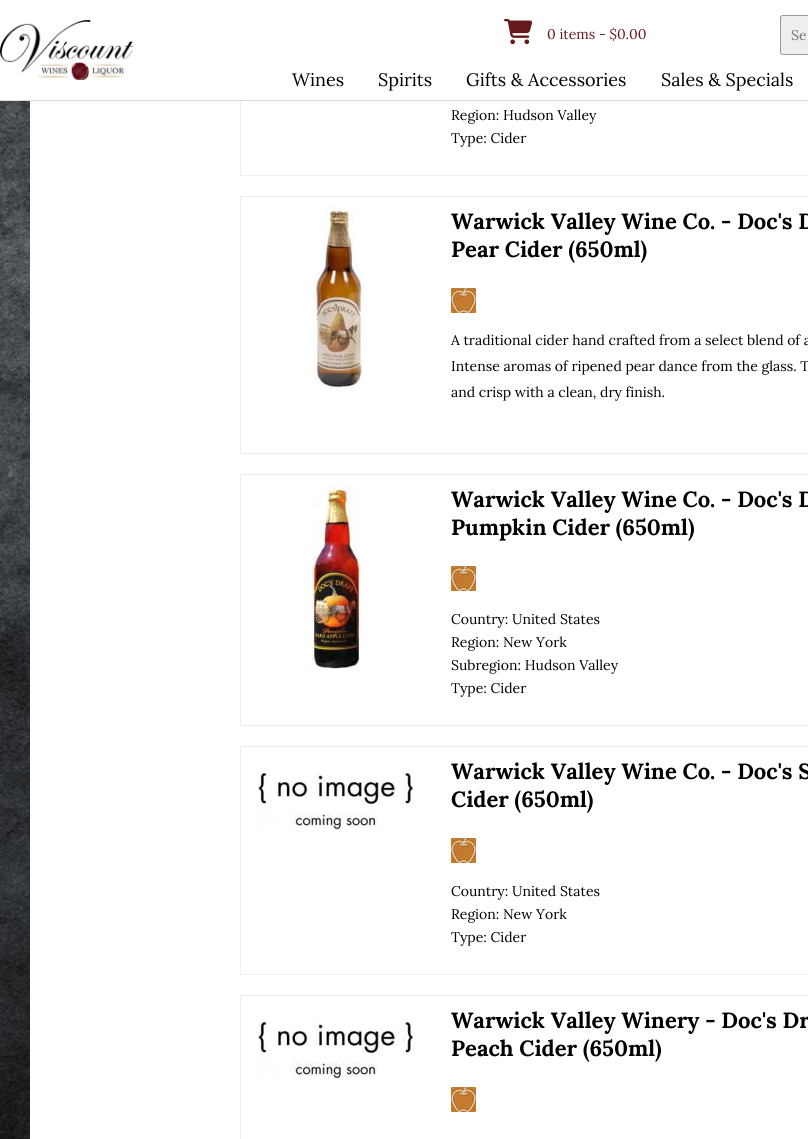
#include <cairo/cairo.h>
#include <math.h>
#include <stddef.h>


static void rounded_rect(cairo_t *cr, double x, double y, double w, double h, double r) {
  cairo_new_sub_path(cr);
  cairo_arc(cr, x + w - r, y + h - r, r, 0, M_PI / 2);
  cairo_arc(cr, x + r, y + h - r, r, M_PI / 2, M_PI);
  cairo_arc(cr, x + r, y + r, r, M_PI, 1.5 * M_PI);
  cairo_arc(cr, x + w - r, y + r, r, 1.5 * M_PI, 2 * M_PI);
  cairo_close_path(cr);
}

static void draw_image(cairo_t *cr, const char *path, double x, double y, double w, double h) {
  cairo_surface_t *image = cairo_image_surface_create_from_png(path);
  cairo_save(cr);
  cairo_set_source_surface(cr, image, x, y);
  cairo_rectangle(cr, x, y, w, h);
  cairo_fill(cr);
  cairo_restore(cr);
  cairo_surface_destroy(image);
}

static void draw(cairo_t *cr) {
  cairo_set_source_rgb(cr, 1, 1, 1);
  cairo_paint(cr);
  draw_image(cr, "images/1.png", 0, 101, 30, 1038);
  cairo_rectangle(cr, 240.5, -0.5, 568, 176);
  cairo_set_source_rgb(cr, 238 / 255.0, 238 / 255.0, 238 / 255.0);
  cairo_set_line_width(cr, 1);
  cairo_stroke(cr);
  cairo_set_source_rgb(cr, 1, 1, 1);
  cairo_rectangle(cr, 240, 0, 1, 100);
  cairo_fill(cr);
  cairo_set_source_rgb(cr, 221 / 255.0, 221 / 255.0, 221 / 255.0);
  cairo_rectangle(cr, 0, 100, 808, 1);
  cairo_fill(cr);
  draw_image(cr, "images/2.png", 0, 20, 133, 60);
  draw_image(cr, "images/3.png", 504, 18, 29, 27);
  cairo_set_source_rgb(cr, 238 / 255.0, 238 / 255.0, 238 / 255.0);
  rounded_rect(cr, 780.5, 15.5, 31, 39, 2.5);
  cairo_fill_preserve(cr);
  cairo_set_source_rgb(cr, 153 / 255.0, 153 / 255.0, 153 / 255.0);
  cairo_stroke(cr);
  cairo_rectangle(cr, 240.5, 196.5, 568, 257);
  cairo_set_source_rgb(cr, 238 / 255.0, 238 / 255.0, 238 / 255.0);
  cairo_stroke(cr);
  draw_image(cr, "images/4.png", 307, 207, 58, 183);
  draw_image(cr, "images/5.png", 451, 288, 25, 25);
  cairo_rectangle(cr, 240.5, 474.5, 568, 251);
  cairo_stroke(cr);
  draw_image(cr, "images/6.png", 311, 485, 50, 184);
  draw_image(cr, "images/5.png", 451, 566, 25, 25);
  cairo_rectangle(cr, 240.5, 746.5, 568, 228);
  cairo_stroke(cr);
  draw_image(cr, "images/7.png", 258, 771, 156, 60);
  draw_image(cr, "images/5.png", 451, 838, 25, 25);
  cairo_rectangle(cr, 240.5, 995.5, 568, 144);
  cairo_stroke(cr);
  draw_image(cr, "images/7.png", 258, 1020, 156, 60);
  draw_image(cr, "images/5.png", 451, 1087, 25, 25);
  cairo_select_font_face(cr, "Lora", CAIRO_FONT_SLANT_NORMAL, CAIRO_FONT_WEIGHT_NORMAL);
  cairo_set_font_size(cr, 14);
  cairo_set_source_rgb(cr, 103 / 255.0, 26 / 255.0, 28 / 255.0);
  cairo_move_to(cr, 547, 39);
  cairo_show_text(cr, "0 items - $0.00");
  cairo_set_source_rgb(cr, 117 / 255.0, 117 / 255.0, 117 / 255.0);
  cairo_move_to(cr, 791, 40);
  cairo_show_text(cr, "Se");
  cairo_set_font_size(cr, 18);
  cairo_set_source_rgb(cr, 0, 0, 0);
  cairo_move_to(cr, 292, 86);
  cairo_show_text(cr, "Wines");
  cairo_move_to(cr, 378, 86);
  cairo_show_text(cr, "Spirits");
  cairo_move_to(cr, 466, 86);
  cairo_show_text(cr, "Gifts & Accessories");
  cairo_move_to(cr, 661, 86);
  cairo_show_text(cr, "Sales & Specials");
  cairo_set_font_size(cr, 14);
  cairo_move_to(cr, 451, 120);
  cairo_show_text(cr, "Region: Hudson Valley");
  cairo_move_to(cr, 451, 143);
  cairo_show_text(cr, "Type: Cider");
  cairo_select_font_face(cr, "Lora", CAIRO_FONT_SLANT_NORMAL, CAIRO_FONT_WEIGHT_BOLD);
  cairo_set_font_size(cr, 22);
  cairo_move_to(cr, 451, 229);
  cairo_show_text(cr, "Warwick Valley Wine Co. - Doc's D");
  cairo_move_to(cr, 451, 257);
  cairo_show_text(cr, "Pear Cider (650ml)");
  cairo_select_font_face(cr, "Lora", CAIRO_FONT_SLANT_NORMAL, CAIRO_FONT_WEIGHT_NORMAL);
  cairo_set_font_size(cr, 14);
  cairo_move_to(cr, 451, 345);
  cairo_show_text(cr, "A traditional cider hand crafted from a select blend of a");
  cairo_move_to(cr, 451, 371);
  cairo_show_text(cr, "Intense aromas of ripened pear dance from the glass. T");
  cairo_move_to(cr, 451, 397);
  cairo_show_text(cr, "and crisp with a clean, dry finish.");
  cairo_select_font_face(cr, "Lora", CAIRO_FONT_SLANT_NORMAL, CAIRO_FONT_WEIGHT_BOLD);
  cairo_set_font_size(cr, 22);
  cairo_move_to(cr, 451, 507);
  cairo_show_text(cr, "Warwick Valley Wine Co. - Doc's D");
  cairo_move_to(cr, 451, 535);
  cairo_show_text(cr, "Pumpkin Cider (650ml)");
  cairo_select_font_face(cr, "Lora", CAIRO_FONT_SLANT_NORMAL, CAIRO_FONT_WEIGHT_NORMAL);
  cairo_set_font_size(cr, 14);
  cairo_move_to(cr, 451, 624);
  cairo_show_text(cr, "Country: United States");
  cairo_move_to(cr, 451, 647);
  cairo_show_text(cr, "Region: New York");
  cairo_move_to(cr, 451, 670);
  cairo_show_text(cr, "Subregion: Hudson Valley");
  cairo_move_to(cr, 451, 693);
  cairo_show_text(cr, "Type: Cider");
  cairo_select_font_face(cr, "Lora", CAIRO_FONT_SLANT_NORMAL, CAIRO_FONT_WEIGHT_BOLD);
  cairo_set_font_size(cr, 22);
  cairo_move_to(cr, 451, 779);
  cairo_show_text(cr, "Warwick Valley Wine Co. - Doc's S");
  cairo_move_to(cr, 451, 807);
  cairo_show_text(cr, "Cider (650ml)");
  cairo_select_font_face(cr, "Lora", CAIRO_FONT_SLANT_NORMAL, CAIRO_FONT_WEIGHT_NORMAL);
  cairo_set_font_size(cr, 14);
  cairo_move_to(cr, 451, 896);
  cairo_show_text(cr, "Country: United States");
  cairo_move_to(cr, 451, 919);
  cairo_show_text(cr, "Region: New York");
  cairo_move_to(cr, 451, 942);
  cairo_show_text(cr, "Type: Cider");
  cairo_select_font_face(cr, "Lora", CAIRO_FONT_SLANT_NORMAL, CAIRO_FONT_WEIGHT_BOLD);
  cairo_set_font_size(cr, 22);
  cairo_move_to(cr, 451, 1028);
  cairo_show_text(cr, "Warwick Valley Winery - Doc's Dr");
  cairo_move_to(cr, 451, 1056);
  cairo_show_text(cr, "Peach Cider (650ml)");
}

int main(void) {
  cairo_surface_t *surface = cairo_image_surface_create(CAIRO_FORMAT_RGB24, 808, 1139);
  cairo_t *cr = cairo_create(surface);
  cairo_font_options_t *options = cairo_font_options_create();
  cairo_font_options_set_hint_metrics(options, CAIRO_HINT_METRICS_OFF);
  cairo_font_options_set_hint_style(options, CAIRO_HINT_STYLE_NONE);
  cairo_set_font_options(cr, options);
  cairo_set_miter_limit(cr, 4);
  draw(cr);
  cairo_surface_write_to_png(surface, "out.png");
  cairo_font_options_destroy(options);
  cairo_destroy(cr);
  cairo_surface_destroy(surface);
  return 0;
}
